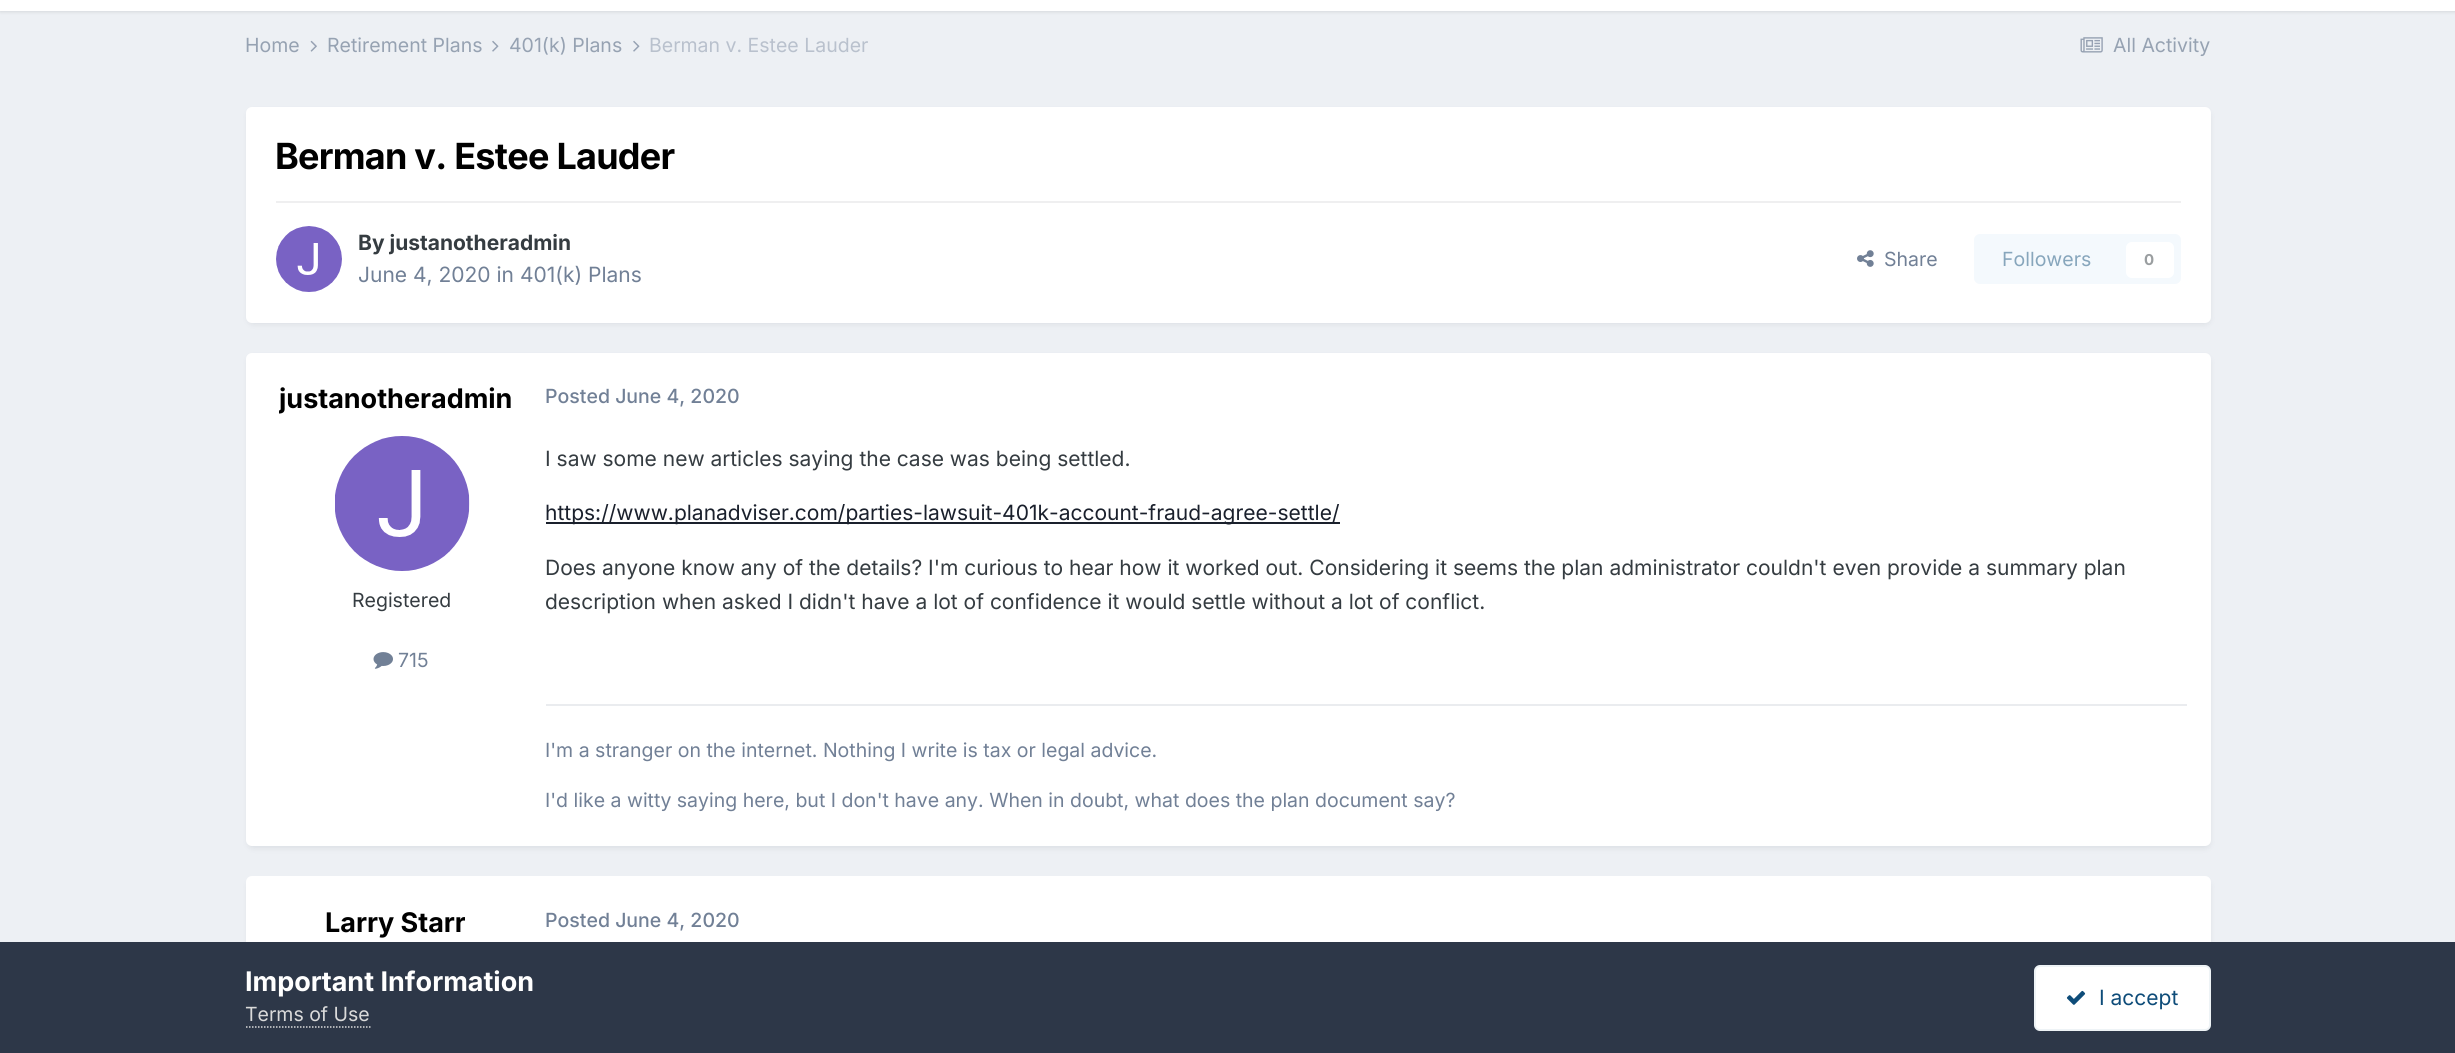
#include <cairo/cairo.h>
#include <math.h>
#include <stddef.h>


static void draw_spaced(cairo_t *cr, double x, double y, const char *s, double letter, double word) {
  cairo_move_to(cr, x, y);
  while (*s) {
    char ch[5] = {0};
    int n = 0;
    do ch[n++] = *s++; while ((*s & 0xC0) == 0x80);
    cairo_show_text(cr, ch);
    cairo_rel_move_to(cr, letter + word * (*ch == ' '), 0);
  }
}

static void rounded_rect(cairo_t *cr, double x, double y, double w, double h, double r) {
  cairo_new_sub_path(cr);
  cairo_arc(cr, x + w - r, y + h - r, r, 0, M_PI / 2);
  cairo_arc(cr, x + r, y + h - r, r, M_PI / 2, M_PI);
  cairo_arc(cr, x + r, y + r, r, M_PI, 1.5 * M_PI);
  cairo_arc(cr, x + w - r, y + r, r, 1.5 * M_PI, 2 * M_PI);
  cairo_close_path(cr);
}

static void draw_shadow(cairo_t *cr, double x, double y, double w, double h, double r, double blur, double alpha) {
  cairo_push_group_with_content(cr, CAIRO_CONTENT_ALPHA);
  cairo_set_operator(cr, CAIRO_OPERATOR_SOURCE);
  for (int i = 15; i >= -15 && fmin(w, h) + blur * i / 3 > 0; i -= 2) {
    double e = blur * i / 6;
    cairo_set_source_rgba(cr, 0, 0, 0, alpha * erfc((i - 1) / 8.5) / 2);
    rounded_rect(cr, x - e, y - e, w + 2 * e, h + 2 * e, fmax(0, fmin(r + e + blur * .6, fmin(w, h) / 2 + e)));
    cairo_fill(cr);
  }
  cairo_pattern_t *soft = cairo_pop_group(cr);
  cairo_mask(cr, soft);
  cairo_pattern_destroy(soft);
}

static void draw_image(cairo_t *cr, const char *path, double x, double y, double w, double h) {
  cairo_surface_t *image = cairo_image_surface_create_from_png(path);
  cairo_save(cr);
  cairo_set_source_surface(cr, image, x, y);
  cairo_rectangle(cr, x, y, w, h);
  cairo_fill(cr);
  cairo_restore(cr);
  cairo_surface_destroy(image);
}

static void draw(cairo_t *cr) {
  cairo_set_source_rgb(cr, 237 / 255.0, 240 / 255.0, 244 / 255.0);
  cairo_paint(cr);
  cairo_set_source_rgb(cr, 0, 0, 0);
  draw_shadow(cr, 0, -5, 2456, 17, 0, 1.5, 0.1);
  cairo_set_source_rgb(cr, 1, 1, 1);
  cairo_rectangle(cr, 0, 0, 2455, 11);
  cairo_fill(cr);
  draw_image(cr, "images/1.png", 310, 40, 7, 12);
  draw_image(cr, "images/2.png", 492, 40, 7, 12);
  draw_image(cr, "images/2.png", 633, 40, 7, 12);
  draw_image(cr, "images/3.png", 2080, 37, 23, 16);
  cairo_set_source_rgb(cr, 45 / 255.0, 55 / 255.0, 72 / 255.0);
  draw_shadow(cr, 248, 111, 1962, 213, 5, 3, 0.1);
  cairo_set_source_rgb(cr, 1, 1, 1);
  rounded_rect(cr, 246, 107, 1965, 216, 6);
  cairo_fill(cr);
  cairo_set_source_rgb(cr, 239 / 255.0, 239 / 255.0, 240 / 255.0);
  cairo_rectangle(cr, 276, 201, 1905, 2);
  cairo_fill(cr);
  draw_image(cr, "images/4.png", 276, 226, 66, 66);
  draw_image(cr, "images/5.png", 1857, 250, 17, 17);
  cairo_set_source_rgb(cr, 244 / 255.0, 249 / 255.0, 253 / 255.0);
  rounded_rect(cr, 1974, 234, 207, 50, 6);
  cairo_fill(cr);
  cairo_set_source_rgb(cr, 1, 1, 1);
  rounded_rect(cr, 2126, 242, 48, 36, 6);
  cairo_fill(cr);
  cairo_set_source_rgb(cr, 45 / 255.0, 55 / 255.0, 72 / 255.0);
  draw_shadow(cr, 248, 357, 1962, 491, 5, 3, 0.1);
  cairo_set_source_rgb(cr, 1, 1, 1);
  rounded_rect(cr, 246, 353, 1965, 493, 6);
  cairo_fill(cr);
  draw_image(cr, "images/6.png", 335, 436, 135, 135);
  draw_image(cr, "images/7.png", 373, 652, 20, 17);
  cairo_set_source_rgb(cr, 26 / 255.0, 32 / 255.0, 44 / 255.0);
  cairo_rectangle(cr, 546, 522, 794, 2);
  cairo_fill(cr);
  cairo_set_source_rgb(cr, 234 / 255.0, 236 / 255.0, 239 / 255.0);
  cairo_rectangle(cr, 546, 704, 1641, 2);
  cairo_fill(cr);
  cairo_set_source_rgb(cr, 45 / 255.0, 55 / 255.0, 72 / 255.0);
  draw_shadow(cr, 248, 881, 1962, 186, 5, 3, 0.1);
  cairo_set_source_rgb(cr, 1, 1, 1);
  rounded_rect(cr, 246, 876, 1965, 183, 6);
  cairo_fill(cr);
  cairo_set_source_rgb(cr, 45 / 255.0, 55 / 255.0, 72 / 255.0);
  cairo_rectangle(cr, 0, 942, 2455, 111);
  cairo_fill(cr);
  cairo_new_path(cr);
  cairo_move_to(cr, 246, 1027);
  cairo_line_to(cr, 370.5, 1027);
  cairo_set_source_rgb(cr, 218 / 255.0, 218 / 255.0, 218 / 255.0);
  cairo_set_line_width(cr, 1.5);
  cairo_set_dash(cr, (double[]){1.5, 1.5}, 2, 0);
  cairo_stroke(cr);
  cairo_set_source_rgb(cr, 1, 1, 1);
  rounded_rect(cr, 2034, 965, 177, 66, 6);
  cairo_fill(cr);
  rounded_rect(cr, 2035, 966, 175, 64, 5);
  cairo_set_source_rgba(cr, 14 / 255.0, 76 / 255.0, 121 / 255.0, 0.07);
  cairo_set_line_width(cr, 2);
  cairo_set_dash(cr, NULL, 0, 0);
  cairo_stroke(cr);
  draw_image(cr, "images/8.png", 2066, 990, 20, 15);
  cairo_select_font_face(cr, "Inter", CAIRO_FONT_SLANT_NORMAL, CAIRO_FONT_WEIGHT_NORMAL);
  cairo_set_font_size(cr, 19.5);
  cairo_set_source_rgb(cr, 150 / 255.0, 162 / 255.0, 178 / 255.0);
  cairo_move_to(cr, 245, 52);
  cairo_show_text(cr, "Home");
  cairo_move_to(cr, 327, 52);
  cairo_show_text(cr, "Retirement Plans");
  cairo_move_to(cr, 509, 52);
  cairo_show_text(cr, "401(k) Plans");
  cairo_set_source_rgb(cr, 185 / 255.0, 193 / 255.0, 205 / 255.0);
  cairo_move_to(cr, 649, 52);
  cairo_show_text(cr, "Berman v. Estee Lauder");
  cairo_set_source_rgb(cr, 150 / 255.0, 162 / 255.0, 178 / 255.0);
  cairo_move_to(cr, 2113, 52);
  cairo_show_text(cr, "All Activity");
  cairo_select_font_face(cr, "Inter", CAIRO_FONT_SLANT_NORMAL, CAIRO_FONT_WEIGHT_BOLD);
  cairo_set_font_size(cr, 36);
  cairo_set_source_rgb(cr, 0, 0, 0);
  draw_spaced(cr, 275, 169, "Berman v. Estee Lauder", -0.75, 0);
  cairo_set_font_size(cr, 21);
  cairo_set_source_rgb(cr, 53 / 255.0, 60 / 255.0, 65 / 255.0);
  cairo_move_to(cr, 358, 250);
  cairo_show_text(cr, "By justanotheradmin");
  cairo_select_font_face(cr, "Inter", CAIRO_FONT_SLANT_NORMAL, CAIRO_FONT_WEIGHT_NORMAL);
  cairo_set_source_rgb(cr, 113 / 255.0, 128 / 255.0, 150 / 255.0);
  cairo_move_to(cr, 358, 282);
  cairo_show_text(cr, "June 4, 2020 in 401(k) Plans");
  cairo_set_font_size(cr, 19.5);
  cairo_move_to(cr, 1884, 266);
  cairo_show_text(cr, "Share");
  cairo_set_source_rgb(cr, 135 / 255.0, 166 / 255.0, 188 / 255.0);
  cairo_move_to(cr, 2002, 266);
  cairo_show_text(cr, "Followers");
  cairo_select_font_face(cr, "Inter", CAIRO_FONT_SLANT_NORMAL, CAIRO_FONT_WEIGHT_BOLD);
  cairo_set_font_size(cr, 15);
  cairo_set_source_rgb(cr, 154 / 255.0, 158 / 255.0, 160 / 255.0);
  cairo_move_to(cr, 2144, 265);
  cairo_show_text(cr, "0");
  cairo_save(cr);
  cairo_rectangle(cr, 279, 383, 233, 31);
  cairo_clip(cr);
  cairo_set_font_size(cr, 27);
  cairo_set_source_rgb(cr, 0, 0, 0);
  cairo_move_to(cr, 279, 408);
  cairo_show_text(cr, "justanotheradmin");
  cairo_restore(cr);
  cairo_select_font_face(cr, "Inter", CAIRO_FONT_SLANT_NORMAL, CAIRO_FONT_WEIGHT_NORMAL);
  cairo_set_font_size(cr, 19.5);
  cairo_set_source_rgb(cr, 53 / 255.0, 60 / 255.0, 65 / 255.0);
  cairo_move_to(cr, 352, 607);
  cairo_show_text(cr, "Registered");
  cairo_set_source_rgb(cr, 113 / 255.0, 128 / 255.0, 150 / 255.0);
  cairo_move_to(cr, 398, 667);
  cairo_show_text(cr, "715");
  cairo_select_font_face(cr, "Inter Medium", CAIRO_FONT_SLANT_NORMAL, CAIRO_FONT_WEIGHT_NORMAL);
  cairo_move_to(cr, 545, 403);
  cairo_show_text(cr, "Posted June 4, 2020");
  cairo_select_font_face(cr, "Inter", CAIRO_FONT_SLANT_NORMAL, CAIRO_FONT_WEIGHT_NORMAL);
  cairo_set_font_size(cr, 21);
  cairo_set_source_rgb(cr, 53 / 255.0, 60 / 255.0, 65 / 255.0);
  cairo_move_to(cr, 545, 466);
  cairo_show_text(cr, "I saw some new articles saying the case was being settled.");
  cairo_set_source_rgb(cr, 26 / 255.0, 32 / 255.0, 44 / 255.0);
  cairo_move_to(cr, 545, 520);
  cairo_show_text(cr, "https://www.planadviser.com/parties-lawsuit-401k-account-fraud-agree-settle/");
  cairo_set_source_rgb(cr, 53 / 255.0, 60 / 255.0, 65 / 255.0);
  cairo_move_to(cr, 545, 575);
  cairo_show_text(cr, "Does anyone know any of the details? I'm curious to hear how it worked out. Considering it seems the plan administrator couldn't even provide a summary plan");
  cairo_move_to(cr, 545, 609);
  cairo_show_text(cr, "description when asked I didn't have a lot of confidence it would settle without a lot of conflict.");
  cairo_set_font_size(cr, 19.5);
  cairo_set_source_rgb(cr, 113 / 255.0, 128 / 255.0, 150 / 255.0);
  cairo_move_to(cr, 545, 757);
  cairo_show_text(cr, "I'm a stranger on the internet. Nothing I write is tax or legal advice.");
  cairo_move_to(cr, 545, 807);
  cairo_show_text(cr, "I'd like a witty saying here, but I don't have any. When in doubt, what does the plan document say?");
  cairo_save(cr);
  cairo_rectangle(cr, 326, 906, 139, 33);
  cairo_clip(cr);
  cairo_select_font_face(cr, "Inter", CAIRO_FONT_SLANT_NORMAL, CAIRO_FONT_WEIGHT_BOLD);
  cairo_set_font_size(cr, 27);
  cairo_set_source_rgb(cr, 0, 0, 0);
  cairo_move_to(cr, 325, 932);
  cairo_show_text(cr, "Larry Starr");
  cairo_restore(cr);
  cairo_select_font_face(cr, "Inter Medium", CAIRO_FONT_SLANT_NORMAL, CAIRO_FONT_WEIGHT_NORMAL);
  cairo_move_to(cr, 545, 927);
  cairo_show_text(cr, "Posted June 4, 2020");
  cairo_select_font_face(cr, "Inter", CAIRO_FONT_SLANT_NORMAL, CAIRO_FONT_WEIGHT_BOLD);
  cairo_set_font_size(cr, 27);
  cairo_set_source_rgb(cr, 1, 1, 1);
  cairo_move_to(cr, 245, 991);
  cairo_show_text(cr, "Important Information");
  cairo_select_font_face(cr, "Inter", CAIRO_FONT_SLANT_NORMAL, CAIRO_FONT_WEIGHT_NORMAL);
  cairo_set_font_size(cr, 19.5);
  cairo_set_source_rgb(cr, 218 / 255.0, 218 / 255.0, 218 / 255.0);
  cairo_move_to(cr, 245, 1021);
  cairo_show_text(cr, "Terms of Use");
  cairo_set_font_size(cr, 21);
  cairo_set_source_rgb(cr, 14 / 255.0, 76 / 255.0, 121 / 255.0);
  cairo_move_to(cr, 2099, 1005);
  cairo_show_text(cr, "I accept");
}

int main(void) {
  cairo_surface_t *surface = cairo_image_surface_create(CAIRO_FORMAT_RGB24, 2455, 1053);
  cairo_t *cr = cairo_create(surface);
  cairo_font_options_t *options = cairo_font_options_create();
  cairo_font_options_set_hint_metrics(options, CAIRO_HINT_METRICS_OFF);
  cairo_font_options_set_hint_style(options, CAIRO_HINT_STYLE_NONE);
  cairo_set_font_options(cr, options);
  cairo_set_miter_limit(cr, 4);
  draw(cr);
  cairo_surface_write_to_png(surface, "out.png");
  cairo_font_options_destroy(options);
  cairo_destroy(cr);
  cairo_surface_destroy(surface);
  return 0;
}
